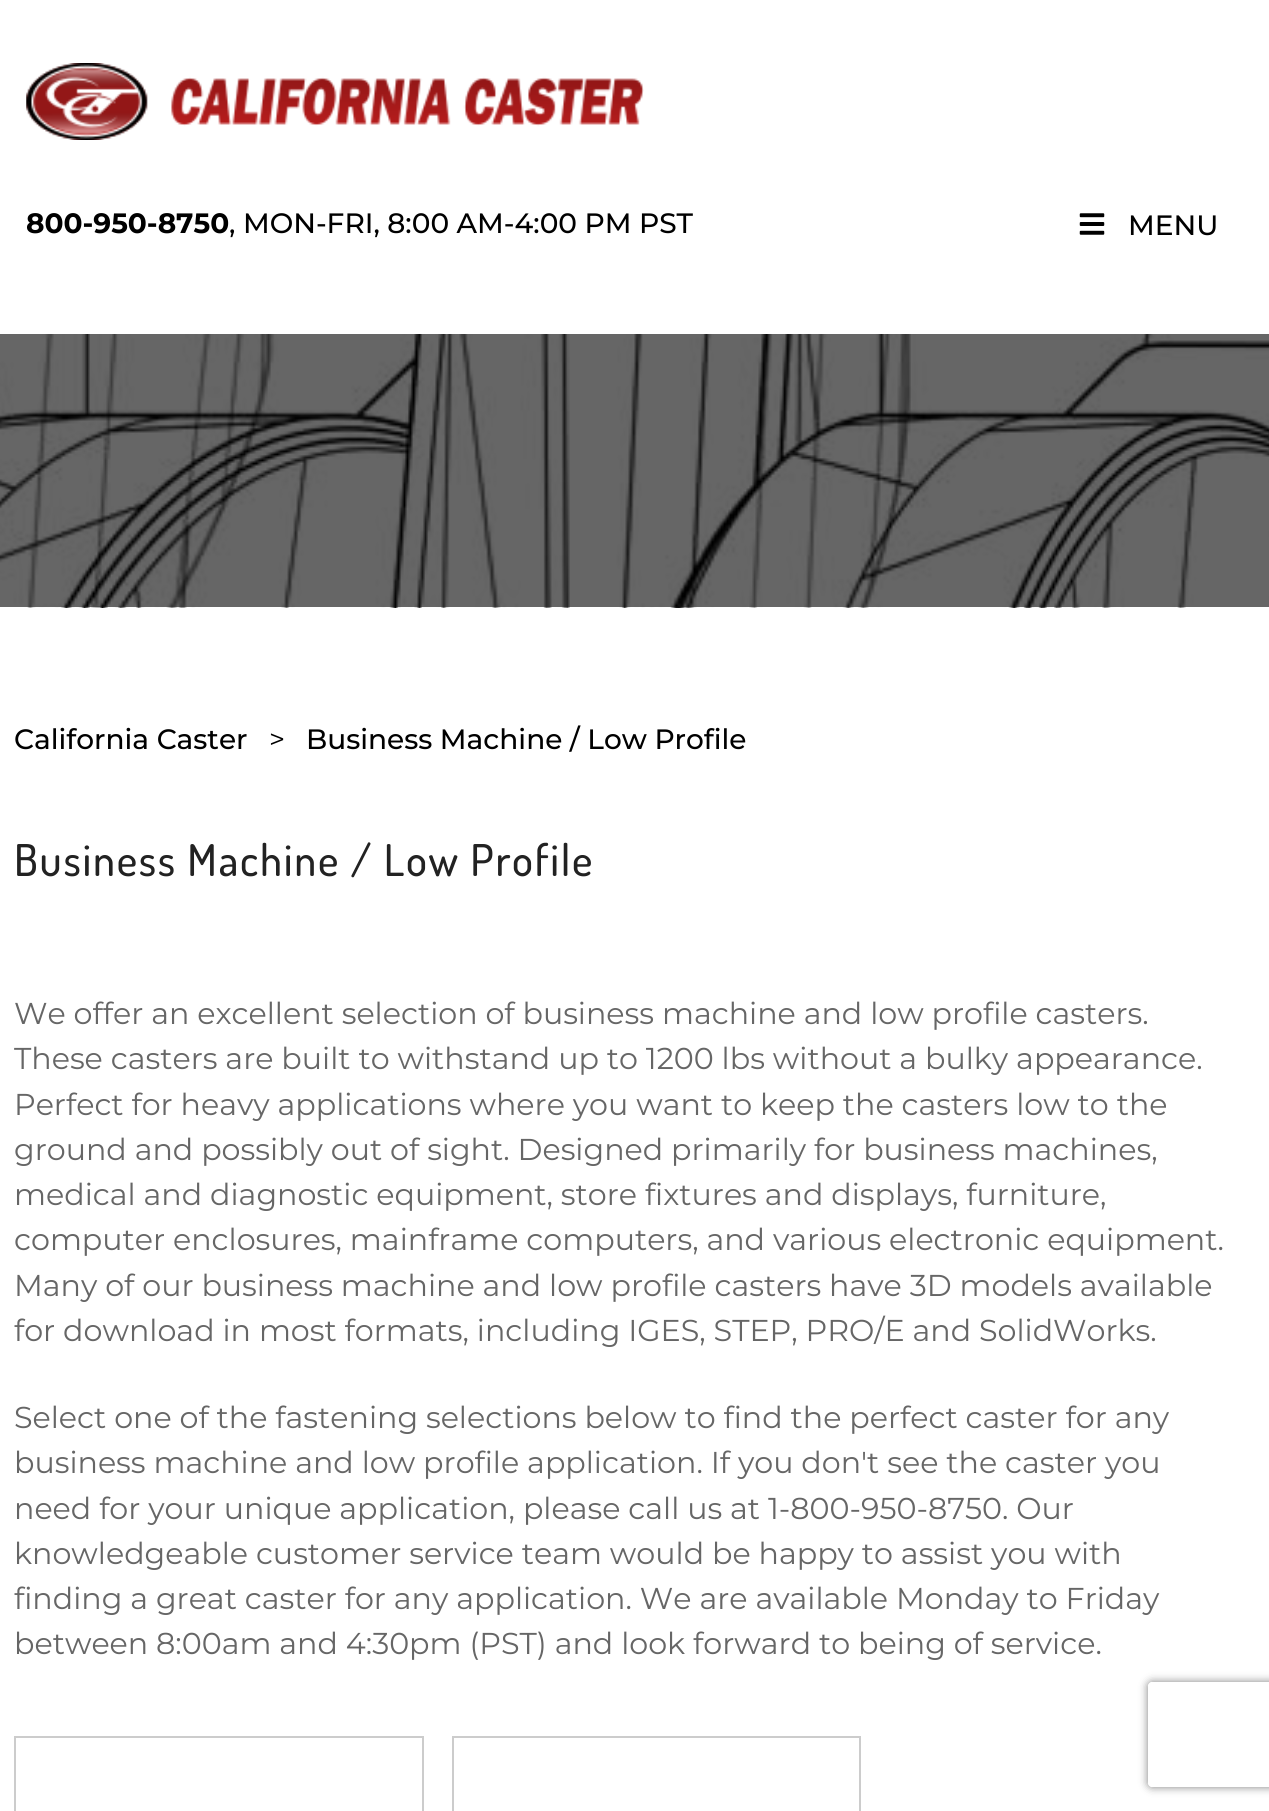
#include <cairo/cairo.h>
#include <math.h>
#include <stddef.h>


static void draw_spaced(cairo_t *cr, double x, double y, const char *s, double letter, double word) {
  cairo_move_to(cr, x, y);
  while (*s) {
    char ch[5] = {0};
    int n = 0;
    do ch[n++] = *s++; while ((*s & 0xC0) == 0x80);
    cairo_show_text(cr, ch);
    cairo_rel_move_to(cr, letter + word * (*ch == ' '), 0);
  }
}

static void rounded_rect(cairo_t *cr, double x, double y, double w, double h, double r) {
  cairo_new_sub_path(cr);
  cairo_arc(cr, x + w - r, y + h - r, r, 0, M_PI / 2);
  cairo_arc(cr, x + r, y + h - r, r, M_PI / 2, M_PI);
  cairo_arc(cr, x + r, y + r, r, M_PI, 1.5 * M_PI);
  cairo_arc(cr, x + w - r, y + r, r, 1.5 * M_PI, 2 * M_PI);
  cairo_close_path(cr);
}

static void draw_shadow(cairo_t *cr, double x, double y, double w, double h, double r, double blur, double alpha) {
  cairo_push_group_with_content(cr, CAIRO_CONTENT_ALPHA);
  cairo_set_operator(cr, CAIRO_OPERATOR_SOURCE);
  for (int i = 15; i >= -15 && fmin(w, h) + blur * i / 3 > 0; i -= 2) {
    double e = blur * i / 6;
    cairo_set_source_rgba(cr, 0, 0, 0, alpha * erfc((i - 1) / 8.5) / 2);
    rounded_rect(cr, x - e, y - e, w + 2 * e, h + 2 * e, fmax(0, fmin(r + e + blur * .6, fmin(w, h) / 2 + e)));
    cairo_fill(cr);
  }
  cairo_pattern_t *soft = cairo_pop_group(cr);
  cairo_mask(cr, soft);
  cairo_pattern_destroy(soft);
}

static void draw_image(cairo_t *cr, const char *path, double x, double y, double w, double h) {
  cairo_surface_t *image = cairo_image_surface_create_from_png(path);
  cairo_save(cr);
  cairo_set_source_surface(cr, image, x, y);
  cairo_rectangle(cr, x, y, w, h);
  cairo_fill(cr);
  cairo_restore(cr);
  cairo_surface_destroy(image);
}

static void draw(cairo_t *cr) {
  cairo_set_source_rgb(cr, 1, 1, 1);
  cairo_paint(cr);
  draw_image(cr, "images/1.png", 26, 63, 618, 77);
  draw_image(cr, "images/2.png", 1079, 213, 26, 22);
  draw_image(cr, "images/3.png", 0, 334, 1269, 274);
  cairo_rectangle(cr, 15, 1737, 408, 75);
  cairo_set_source_rgb(cr, 204 / 255.0, 204 / 255.0, 204 / 255.0);
  cairo_stroke(cr);
  cairo_rectangle(cr, 453, 1737, 407, 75);
  cairo_stroke(cr);
  cairo_save(cr);
  cairo_set_fill_rule(cr, CAIRO_FILL_RULE_EVEN_ODD);
  cairo_new_path(cr);
  cairo_move_to(cr, 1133, 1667);
  cairo_line_to(cr, 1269, 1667);
  cairo_line_to(cr, 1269, 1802);
  cairo_line_to(cr, 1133, 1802);
  cairo_close_path(cr);
  cairo_move_to(cr, 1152, 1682);
  cairo_line_to(cr, 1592, 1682);
  cairo_curve_to(cr, 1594, 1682, 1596, 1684, 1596, 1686);
  cairo_line_to(cr, 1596, 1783);
  cairo_curve_to(cr, 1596, 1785, 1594, 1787, 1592, 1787);
  cairo_line_to(cr, 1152, 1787);
  cairo_curve_to(cr, 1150, 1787, 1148, 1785, 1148, 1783);
  cairo_line_to(cr, 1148, 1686);
  cairo_curve_to(cr, 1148, 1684, 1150, 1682, 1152, 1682);
  cairo_close_path(cr);
  cairo_clip(cr);
  cairo_set_source_rgb(cr, 128 / 255.0, 128 / 255.0, 128 / 255.0);
  draw_shadow(cr, 1148, 1682, 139, 105, 4, 4.5, 1);
  cairo_restore(cr);
  cairo_select_font_face(cr, "Montserrat", CAIRO_FONT_SLANT_NORMAL, CAIRO_FONT_WEIGHT_BOLD);
  cairo_set_font_size(cr, 28);
  cairo_set_source_rgb(cr, 0, 0, 0);
  cairo_move_to(cr, 26, 233);
  cairo_show_text(cr, "800-950-8750");
  cairo_select_font_face(cr, "Montserrat Medium", CAIRO_FONT_SLANT_NORMAL, CAIRO_FONT_WEIGHT_NORMAL);
  cairo_move_to(cr, 229, 233);
  cairo_show_text(cr, ", MON-FRI, 8:00 AM-4:00 PM PST");
  cairo_move_to(cr, 1128, 235);
  cairo_show_text(cr, "MENU");
  cairo_move_to(cr, 14, 749);
  cairo_show_text(cr, "California Caster");
  cairo_select_font_face(cr, "Montserrat", CAIRO_FONT_SLANT_NORMAL, CAIRO_FONT_WEIGHT_NORMAL);
  cairo_move_to(cr, 269, 749);
  cairo_show_text(cr, ">");
  cairo_select_font_face(cr, "Montserrat Medium", CAIRO_FONT_SLANT_NORMAL, CAIRO_FONT_WEIGHT_NORMAL);
  cairo_move_to(cr, 306, 749);
  cairo_show_text(cr, "Business Machine / Low Profile");
  cairo_select_font_face(cr, "Dosis Medium", CAIRO_FONT_SLANT_NORMAL, CAIRO_FONT_WEIGHT_NORMAL);
  cairo_set_font_size(cr, 43.75);
  cairo_set_source_rgb(cr, 34 / 255.0, 34 / 255.0, 34 / 255.0);
  draw_spaced(cr, 14, 876, "Business Machine / Low Profile", 1.75, 0);
  cairo_select_font_face(cr, "Montserrat", CAIRO_FONT_SLANT_NORMAL, CAIRO_FONT_WEIGHT_NORMAL);
  cairo_set_font_size(cr, 30.15);
  cairo_set_source_rgb(cr, 102 / 255.0, 102 / 255.0, 102 / 255.0);
  cairo_move_to(cr, 14, 1024);
  cairo_show_text(cr, "We offer an excellent selection of business machine and low profile casters.");
  cairo_move_to(cr, 14, 1069);
  cairo_show_text(cr, "These casters are built to withstand up to 1200 lbs without a bulky appearance.");
  cairo_move_to(cr, 14, 1115);
  cairo_show_text(cr, "Perfect for heavy applications where you want to keep the casters low to the");
  cairo_move_to(cr, 14, 1160);
  cairo_show_text(cr, "ground and possibly out of sight. Designed primarily for business machines,");
  cairo_move_to(cr, 14, 1205);
  cairo_show_text(cr, "medical and diagnostic equipment, store fixtures and displays, furniture,");
  cairo_move_to(cr, 14, 1250);
  cairo_show_text(cr, "computer enclosures, mainframe computers, and various electronic equipment.");
  cairo_move_to(cr, 14, 1296);
  cairo_show_text(cr, "Many of our business machine and low profile casters have 3D models available");
  cairo_move_to(cr, 14, 1341);
  cairo_show_text(cr, "for download in most formats, including IGES, STEP, PRO/E and SolidWorks.");
  cairo_move_to(cr, 14, 1428);
  cairo_show_text(cr, "Select one of the fastening selections below to find the perfect caster for any");
  cairo_move_to(cr, 14, 1473);
  cairo_show_text(cr, "business machine and low profile application. If you don't see the caster you");
  cairo_move_to(cr, 14, 1519);
  cairo_show_text(cr, "need for your unique application, please call us at 1-800-950-8750. Our");
  cairo_move_to(cr, 14, 1564);
  cairo_show_text(cr, "knowledgeable customer service team would be happy to assist you with");
  cairo_move_to(cr, 14, 1609);
  cairo_show_text(cr, "finding a great caster for any application. We are available Monday to Friday");
  cairo_move_to(cr, 14, 1654);
  cairo_show_text(cr, "between 8:00am and 4:30pm (PST) and look forward to being of service.");
}

int main(void) {
  cairo_surface_t *surface = cairo_image_surface_create(CAIRO_FORMAT_RGB24, 1269, 1811);
  cairo_t *cr = cairo_create(surface);
  cairo_font_options_t *options = cairo_font_options_create();
  cairo_font_options_set_hint_metrics(options, CAIRO_HINT_METRICS_OFF);
  cairo_font_options_set_hint_style(options, CAIRO_HINT_STYLE_NONE);
  cairo_set_font_options(cr, options);
  cairo_set_miter_limit(cr, 4);
  draw(cr);
  cairo_surface_write_to_png(surface, "out.png");
  cairo_font_options_destroy(options);
  cairo_destroy(cr);
  cairo_surface_destroy(surface);
  return 0;
}
